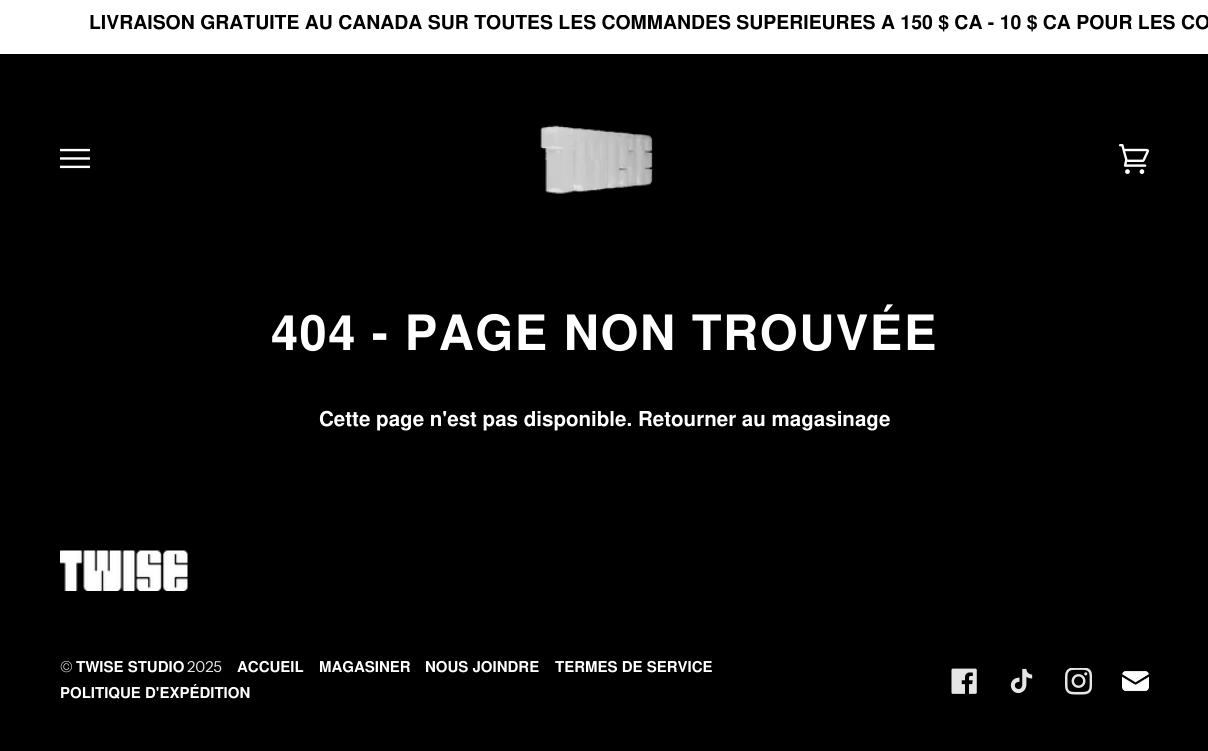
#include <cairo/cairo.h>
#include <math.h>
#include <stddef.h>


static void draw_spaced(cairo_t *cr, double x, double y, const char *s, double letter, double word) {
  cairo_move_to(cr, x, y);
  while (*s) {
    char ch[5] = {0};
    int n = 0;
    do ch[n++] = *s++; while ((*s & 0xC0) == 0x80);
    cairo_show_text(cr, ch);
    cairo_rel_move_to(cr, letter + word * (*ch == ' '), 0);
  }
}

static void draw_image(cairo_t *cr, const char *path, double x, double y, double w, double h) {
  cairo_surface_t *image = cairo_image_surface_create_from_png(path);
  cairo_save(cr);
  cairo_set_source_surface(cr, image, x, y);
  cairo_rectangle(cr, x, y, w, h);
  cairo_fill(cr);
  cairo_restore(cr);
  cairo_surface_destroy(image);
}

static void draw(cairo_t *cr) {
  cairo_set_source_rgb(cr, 1, 1, 1);
  cairo_paint(cr);
  cairo_set_source_rgb(cr, 0, 0, 0);
  cairo_rectangle(cr, 0, 54, 1208, 697);
  cairo_fill(cr);
  draw_image(cr, "images/1.png", 60, 148, 30, 21);
  draw_image(cr, "images/2.png", 540, 125, 113, 69);
  draw_image(cr, "images/3.png", 1119, 144, 30, 30);
  draw_image(cr, "images/4.png", 60, 550, 128, 41);
  draw_image(cr, "images/5.png", 951, 668, 26, 26);
  draw_image(cr, "images/6.png", 1010, 668, 23, 26);
  draw_image(cr, "images/7.png", 1065, 668, 27, 27);
  draw_image(cr, "images/8.png", 1122, 671, 27, 21);
  cairo_save(cr);
  cairo_rectangle(cr, 0, 15, 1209, 24);
  cairo_clip(cr);
  cairo_select_font_face(cr, "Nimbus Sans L", CAIRO_FONT_SLANT_NORMAL, CAIRO_FONT_WEIGHT_BOLD);
  cairo_set_font_size(cr, 19.42);
  cairo_move_to(cr, 89, 29);
  cairo_show_text(cr, "LIVRAISON GRATUITE AU CANADA SUR TOUTES LES COMMANDES SUPÉRIEURES À 150 $ CA - 10 $ CA POUR LES CO");
  cairo_restore(cr);
  cairo_select_font_face(cr, "Nimbus Sans L", CAIRO_FONT_SLANT_NORMAL, CAIRO_FONT_WEIGHT_BOLD);
  cairo_set_font_size(cr, 48.75);
  cairo_set_source_rgb(cr, 1, 1, 1);
  draw_spaced(cr, 271, 350, "404 - PAGE NON TROUVÉE", 1.5, 0);
  cairo_set_font_size(cr, 20.55);
  cairo_move_to(cr, 319, 426);
  cairo_show_text(cr, "Cette page n'est pas disponible. Retourner au magasinage");
  cairo_select_font_face(cr, "Instrument Sans", CAIRO_FONT_SLANT_NORMAL, CAIRO_FONT_WEIGHT_NORMAL);
  cairo_set_font_size(cr, 15);
  cairo_set_source_rgb(cr, 230 / 255.0, 230 / 255.0, 230 / 255.0);
  cairo_move_to(cr, 60, 672);
  cairo_show_text(cr, "©");
  cairo_select_font_face(cr, "Nimbus Sans L", CAIRO_FONT_SLANT_NORMAL, CAIRO_FONT_WEIGHT_BOLD);
  cairo_set_source_rgb(cr, 1, 1, 1);
  cairo_move_to(cr, 76, 672);
  cairo_show_text(cr, "TWISE STUDIO");
  cairo_select_font_face(cr, "Instrument Sans", CAIRO_FONT_SLANT_NORMAL, CAIRO_FONT_WEIGHT_NORMAL);
  cairo_set_source_rgb(cr, 230 / 255.0, 230 / 255.0, 230 / 255.0);
  cairo_move_to(cr, 187, 672);
  cairo_show_text(cr, "2025");
  cairo_select_font_face(cr, "Nimbus Sans L", CAIRO_FONT_SLANT_NORMAL, CAIRO_FONT_WEIGHT_BOLD);
  cairo_set_source_rgb(cr, 1, 1, 1);
  cairo_move_to(cr, 237, 672);
  cairo_show_text(cr, "ACCUEIL");
  cairo_move_to(cr, 319, 672);
  cairo_show_text(cr, "MAGASINER");
  cairo_move_to(cr, 425, 672);
  cairo_show_text(cr, "NOUS JOINDRE");
  cairo_move_to(cr, 555, 672);
  cairo_show_text(cr, "TERMES DE SERVICE");
  cairo_move_to(cr, 60, 698);
  cairo_show_text(cr, "POLITIQUE D'EXPÉDITION");
}

int main(void) {
  cairo_surface_t *surface = cairo_image_surface_create(CAIRO_FORMAT_RGB24, 1208, 751);
  cairo_t *cr = cairo_create(surface);
  cairo_font_options_t *options = cairo_font_options_create();
  cairo_font_options_set_hint_metrics(options, CAIRO_HINT_METRICS_OFF);
  cairo_font_options_set_hint_style(options, CAIRO_HINT_STYLE_NONE);
  cairo_set_font_options(cr, options);
  cairo_set_miter_limit(cr, 4);
  draw(cr);
  cairo_surface_write_to_png(surface, "out.png");
  cairo_font_options_destroy(options);
  cairo_destroy(cr);
  cairo_surface_destroy(surface);
  return 0;
}
